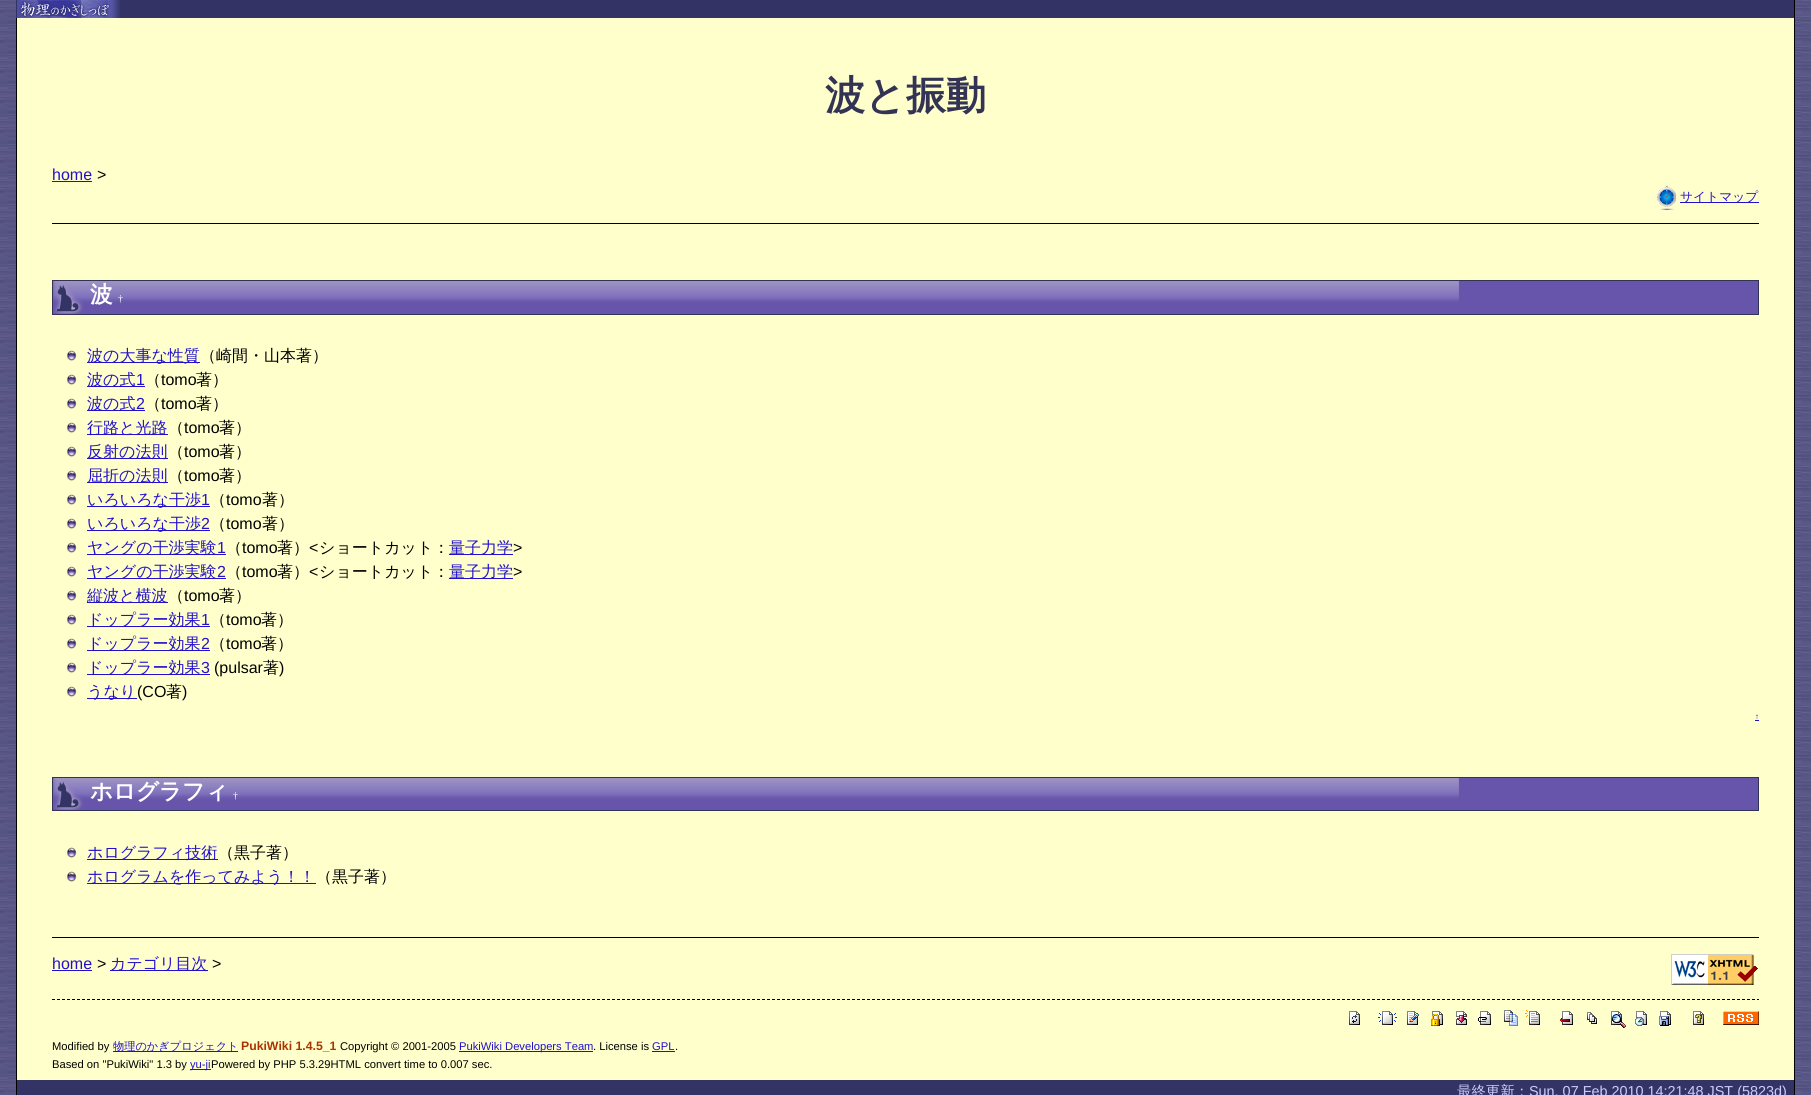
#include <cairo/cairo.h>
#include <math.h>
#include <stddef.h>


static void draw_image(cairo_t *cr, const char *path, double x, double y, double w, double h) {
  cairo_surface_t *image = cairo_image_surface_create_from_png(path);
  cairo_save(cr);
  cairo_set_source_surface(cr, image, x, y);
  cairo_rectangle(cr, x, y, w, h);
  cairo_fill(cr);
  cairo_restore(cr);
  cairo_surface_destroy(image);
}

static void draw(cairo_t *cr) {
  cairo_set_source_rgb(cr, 1, 1, 1);
  cairo_paint(cr);
  draw_image(cr, "images/1.png", 0, 0, 1811, 1095);
  cairo_set_source_rgb(cr, 51 / 255.0, 51 / 255.0, 102 / 255.0);
  cairo_rectangle(cr, 16, 0, 1778, 18);
  cairo_fill(cr);
  cairo_set_source_rgb(cr, 0, 0, 0);
  cairo_rectangle(cr, 1794, 0, 1, 1095);
  cairo_fill(cr);
  draw_image(cr, "images/2.png", 17, 0, 103, 18);
  cairo_set_source_rgb(cr, 1, 1, 204 / 255.0);
  cairo_rectangle(cr, 17, 18, 1777, 1062);
  cairo_fill(cr);
  cairo_set_source_rgb(cr, 0, 0, 0);
  cairo_rectangle(cr, 16, 18, 1, 1077);
  cairo_fill(cr);
  cairo_rectangle(cr, 52, 223, 1707, 1);
  cairo_fill(cr);
  cairo_set_source_rgb(cr, 34 / 255.0, 17 / 255.0, 204 / 255.0);
  cairo_rectangle(cr, 52, 181, 40, 1);
  cairo_fill(cr);
  draw_image(cr, "images/3.png", 1657, 184, 20, 27);
  cairo_rectangle(cr, 1680, 202, 79, 1);
  cairo_fill(cr);
  cairo_set_source_rgb(cr, 102 / 255.0, 85 / 255.0, 170 / 255.0);
  cairo_rectangle(cr, 1459, 281, 299, 33);
  cairo_fill(cr);
  draw_image(cr, "images/4.png", 53, 281, 1406, 33);
  cairo_rectangle(cr, 52.5, 280.5, 1706, 34);
  cairo_set_source_rgb(cr, 51 / 255.0, 51 / 255.0, 85 / 255.0);
  cairo_set_line_width(cr, 1);
  cairo_stroke(cr);
  draw_image(cr, "images/5.png", 66, 350, 11, 11);
  cairo_set_source_rgb(cr, 34 / 255.0, 17 / 255.0, 204 / 255.0);
  cairo_rectangle(cr, 87, 362, 113, 1);
  cairo_fill(cr);
  draw_image(cr, "images/5.png", 66, 374, 11, 11);
  cairo_rectangle(cr, 87, 386, 58, 1);
  cairo_fill(cr);
  draw_image(cr, "images/5.png", 66, 398, 11, 11);
  cairo_rectangle(cr, 87, 410, 58, 1);
  cairo_fill(cr);
  draw_image(cr, "images/5.png", 66, 422, 11, 11);
  cairo_rectangle(cr, 87, 434, 81, 1);
  cairo_fill(cr);
  draw_image(cr, "images/5.png", 66, 446, 11, 11);
  cairo_rectangle(cr, 87, 458, 81, 1);
  cairo_fill(cr);
  draw_image(cr, "images/5.png", 66, 470, 11, 11);
  cairo_rectangle(cr, 87, 482, 81, 1);
  cairo_fill(cr);
  draw_image(cr, "images/5.png", 66, 494, 11, 11);
  cairo_rectangle(cr, 87, 506, 123, 1);
  cairo_fill(cr);
  draw_image(cr, "images/5.png", 66, 518, 11, 11);
  cairo_rectangle(cr, 87, 530, 123, 1);
  cairo_fill(cr);
  draw_image(cr, "images/5.png", 66, 542, 11, 11);
  cairo_rectangle(cr, 87, 554, 139, 1);
  cairo_fill(cr);
  cairo_rectangle(cr, 449, 554, 64, 1);
  cairo_fill(cr);
  draw_image(cr, "images/5.png", 66, 566, 11, 11);
  cairo_rectangle(cr, 87, 578, 139, 1);
  cairo_fill(cr);
  cairo_rectangle(cr, 449, 578, 64, 1);
  cairo_fill(cr);
  draw_image(cr, "images/5.png", 66, 590, 11, 11);
  cairo_rectangle(cr, 87, 602, 81, 1);
  cairo_fill(cr);
  draw_image(cr, "images/5.png", 66, 614, 11, 11);
  cairo_rectangle(cr, 87, 626, 123, 1);
  cairo_fill(cr);
  draw_image(cr, "images/5.png", 66, 638, 11, 11);
  cairo_rectangle(cr, 87, 650, 123, 1);
  cairo_fill(cr);
  draw_image(cr, "images/5.png", 66, 662, 11, 11);
  cairo_rectangle(cr, 87, 674, 123, 1);
  cairo_fill(cr);
  draw_image(cr, "images/5.png", 66, 686, 11, 11);
  cairo_rectangle(cr, 87, 698, 50, 1);
  cairo_fill(cr);
  cairo_rectangle(cr, 1755, 720, 4, 1);
  cairo_fill(cr);
  cairo_set_source_rgb(cr, 102 / 255.0, 85 / 255.0, 170 / 255.0);
  cairo_rectangle(cr, 1459, 778, 299, 32);
  cairo_fill(cr);
  draw_image(cr, "images/6.png", 53, 778, 1406, 32);
  cairo_rectangle(cr, 52.5, 777.5, 1706, 33);
  cairo_set_source_rgb(cr, 51 / 255.0, 51 / 255.0, 85 / 255.0);
  cairo_stroke(cr);
  draw_image(cr, "images/5.png", 66, 847, 11, 11);
  cairo_set_source_rgb(cr, 34 / 255.0, 17 / 255.0, 204 / 255.0);
  cairo_rectangle(cr, 87, 859, 131, 1);
  cairo_fill(cr);
  draw_image(cr, "images/5.png", 66, 871, 11, 11);
  cairo_rectangle(cr, 87, 883, 229, 1);
  cairo_fill(cr);
  cairo_set_source_rgb(cr, 0, 0, 0);
  cairo_rectangle(cr, 52, 937, 1707, 1);
  cairo_fill(cr);
  cairo_set_source_rgb(cr, 34 / 255.0, 17 / 255.0, 204 / 255.0);
  cairo_rectangle(cr, 52, 970, 40, 1);
  cairo_fill(cr);
  cairo_rectangle(cr, 110, 970, 98, 1);
  cairo_fill(cr);
  draw_image(cr, "images/7.png", 1671, 954, 87, 31);
  cairo_new_path(cr);
  cairo_move_to(cr, 52, 999.5);
  cairo_line_to(cr, 1759, 999.5);
  cairo_set_source_rgb(cr, 0, 0, 0);
  cairo_set_dash(cr, (double[]){3, 2}, 2, 0);
  cairo_stroke(cr);
  draw_image(cr, "images/8.png", 1349, 1011, 11, 14);
  draw_image(cr, "images/9.png", 1378, 1011, 19, 14);
  draw_image(cr, "images/10.png", 1407, 1011, 12, 14);
  draw_image(cr, "images/11.png", 1431, 1011, 12, 15);
  draw_image(cr, "images/12.png", 1456, 1011, 11, 14);
  draw_image(cr, "images/13.png", 1478, 1011, 13, 14);
  draw_image(cr, "images/14.png", 1504, 1010, 14, 16);
  draw_image(cr, "images/15.png", 1525, 1010, 15, 15);
  draw_image(cr, "images/16.png", 1560, 1011, 13, 14);
  draw_image(cr, "images/17.png", 1587, 1012, 10, 12);
  draw_image(cr, "images/18.png", 1611, 1011, 15, 17);
  draw_image(cr, "images/19.png", 1635, 1011, 12, 15);
  draw_image(cr, "images/20.png", 1659, 1011, 12, 15);
  draw_image(cr, "images/21.png", 1693, 1011, 11, 14);
  draw_image(cr, "images/22.png", 1723, 1011, 36, 14);
  cairo_set_source_rgb(cr, 34 / 255.0, 17 / 255.0, 204 / 255.0);
  cairo_rectangle(cr, 113, 1051, 125, 1);
  cairo_fill(cr);
  cairo_rectangle(cr, 459, 1051, 134, 1);
  cairo_fill(cr);
  cairo_rectangle(cr, 652, 1051, 23, 1);
  cairo_fill(cr);
  cairo_rectangle(cr, 190, 1069, 21, 1);
  cairo_fill(cr);
  cairo_set_source_rgb(cr, 51 / 255.0, 51 / 255.0, 102 / 255.0);
  cairo_rectangle(cr, 17, 1080, 1777, 15);
  cairo_fill(cr);
  cairo_select_font_face(cr, "WenQuanYi Zen Hei", CAIRO_FONT_SLANT_NORMAL, CAIRO_FONT_WEIGHT_BOLD);
  cairo_set_font_size(cr, 40);
  cairo_set_source_rgb(cr, 51 / 255.0, 51 / 255.0, 85 / 255.0);
  cairo_move_to(cr, 825, 109);
  cairo_show_text(cr, "波と振動");
  cairo_select_font_face(cr, "Liberation Sans", CAIRO_FONT_SLANT_NORMAL, CAIRO_FONT_WEIGHT_NORMAL);
  cairo_set_font_size(cr, 16);
  cairo_set_source_rgb(cr, 34 / 255.0, 17 / 255.0, 204 / 255.0);
  cairo_move_to(cr, 52, 180);
  cairo_show_text(cr, "home");
  cairo_set_source_rgb(cr, 0, 0, 0);
  cairo_move_to(cr, 97, 180);
  cairo_show_text(cr, ">");
  cairo_select_font_face(cr, "WenQuanYi Zen Hei Medium", CAIRO_FONT_SLANT_NORMAL, CAIRO_FONT_WEIGHT_NORMAL);
  cairo_set_font_size(cr, 12.75);
  cairo_set_source_rgb(cr, 34 / 255.0, 17 / 255.0, 204 / 255.0);
  cairo_move_to(cr, 1680, 201);
  cairo_show_text(cr, "サイトマップ");
  cairo_select_font_face(cr, "WenQuanYi Zen Hei", CAIRO_FONT_SLANT_NORMAL, CAIRO_FONT_WEIGHT_BOLD);
  cairo_set_font_size(cr, 22.5);
  cairo_set_source_rgb(cr, 1, 1, 1);
  cairo_move_to(cr, 90, 302);
  cairo_show_text(cr, "波");
  cairo_select_font_face(cr, "Liberation Serif", CAIRO_FONT_SLANT_NORMAL, CAIRO_FONT_WEIGHT_NORMAL);
  cairo_set_font_size(cr, 10);
  cairo_move_to(cr, 118, 302);
  cairo_show_text(cr, "†");
  cairo_select_font_face(cr, "WenQuanYi Zen Hei Medium", CAIRO_FONT_SLANT_NORMAL, CAIRO_FONT_WEIGHT_NORMAL);
  cairo_set_font_size(cr, 16);
  cairo_set_source_rgb(cr, 34 / 255.0, 17 / 255.0, 204 / 255.0);
  cairo_move_to(cr, 87, 361);
  cairo_show_text(cr, "波の大事な性質");
  cairo_set_source_rgb(cr, 0, 0, 0);
  cairo_move_to(cr, 200, 361);
  cairo_show_text(cr, "（崎間・山本著）");
  cairo_set_source_rgb(cr, 34 / 255.0, 17 / 255.0, 204 / 255.0);
  cairo_move_to(cr, 87, 385);
  cairo_show_text(cr, "波の式");
  cairo_select_font_face(cr, "Liberation Sans", CAIRO_FONT_SLANT_NORMAL, CAIRO_FONT_WEIGHT_NORMAL);
  cairo_move_to(cr, 136, 385);
  cairo_show_text(cr, "1");
  cairo_select_font_face(cr, "WenQuanYi Zen Hei Medium", CAIRO_FONT_SLANT_NORMAL, CAIRO_FONT_WEIGHT_NORMAL);
  cairo_set_source_rgb(cr, 0, 0, 0);
  cairo_move_to(cr, 145, 385);
  cairo_show_text(cr, "（");
  cairo_select_font_face(cr, "Liberation Sans", CAIRO_FONT_SLANT_NORMAL, CAIRO_FONT_WEIGHT_NORMAL);
  cairo_move_to(cr, 161, 385);
  cairo_show_text(cr, "tomo");
  cairo_select_font_face(cr, "WenQuanYi Zen Hei Medium", CAIRO_FONT_SLANT_NORMAL, CAIRO_FONT_WEIGHT_NORMAL);
  cairo_move_to(cr, 196, 385);
  cairo_show_text(cr, "著）");
  cairo_set_source_rgb(cr, 34 / 255.0, 17 / 255.0, 204 / 255.0);
  cairo_move_to(cr, 87, 409);
  cairo_show_text(cr, "波の式");
  cairo_select_font_face(cr, "Liberation Sans", CAIRO_FONT_SLANT_NORMAL, CAIRO_FONT_WEIGHT_NORMAL);
  cairo_move_to(cr, 136, 409);
  cairo_show_text(cr, "2");
  cairo_select_font_face(cr, "WenQuanYi Zen Hei Medium", CAIRO_FONT_SLANT_NORMAL, CAIRO_FONT_WEIGHT_NORMAL);
  cairo_set_source_rgb(cr, 0, 0, 0);
  cairo_move_to(cr, 145, 409);
  cairo_show_text(cr, "（");
  cairo_select_font_face(cr, "Liberation Sans", CAIRO_FONT_SLANT_NORMAL, CAIRO_FONT_WEIGHT_NORMAL);
  cairo_move_to(cr, 161, 409);
  cairo_show_text(cr, "tomo");
  cairo_select_font_face(cr, "WenQuanYi Zen Hei Medium", CAIRO_FONT_SLANT_NORMAL, CAIRO_FONT_WEIGHT_NORMAL);
  cairo_move_to(cr, 196, 409);
  cairo_show_text(cr, "著）");
  cairo_set_source_rgb(cr, 34 / 255.0, 17 / 255.0, 204 / 255.0);
  cairo_move_to(cr, 87, 433);
  cairo_show_text(cr, "行路と光路");
  cairo_set_source_rgb(cr, 0, 0, 0);
  cairo_move_to(cr, 168, 433);
  cairo_show_text(cr, "（");
  cairo_select_font_face(cr, "Liberation Sans", CAIRO_FONT_SLANT_NORMAL, CAIRO_FONT_WEIGHT_NORMAL);
  cairo_move_to(cr, 184, 433);
  cairo_show_text(cr, "tomo");
  cairo_select_font_face(cr, "WenQuanYi Zen Hei Medium", CAIRO_FONT_SLANT_NORMAL, CAIRO_FONT_WEIGHT_NORMAL);
  cairo_move_to(cr, 219, 433);
  cairo_show_text(cr, "著）");
  cairo_set_source_rgb(cr, 34 / 255.0, 17 / 255.0, 204 / 255.0);
  cairo_move_to(cr, 87, 457);
  cairo_show_text(cr, "反射の法則");
  cairo_set_source_rgb(cr, 0, 0, 0);
  cairo_move_to(cr, 168, 457);
  cairo_show_text(cr, "（");
  cairo_select_font_face(cr, "Liberation Sans", CAIRO_FONT_SLANT_NORMAL, CAIRO_FONT_WEIGHT_NORMAL);
  cairo_move_to(cr, 184, 457);
  cairo_show_text(cr, "tomo");
  cairo_select_font_face(cr, "WenQuanYi Zen Hei Medium", CAIRO_FONT_SLANT_NORMAL, CAIRO_FONT_WEIGHT_NORMAL);
  cairo_move_to(cr, 219, 457);
  cairo_show_text(cr, "著）");
  cairo_set_source_rgb(cr, 34 / 255.0, 17 / 255.0, 204 / 255.0);
  cairo_move_to(cr, 87, 481);
  cairo_show_text(cr, "屈折の法則");
  cairo_set_source_rgb(cr, 0, 0, 0);
  cairo_move_to(cr, 168, 481);
  cairo_show_text(cr, "（");
  cairo_select_font_face(cr, "Liberation Sans", CAIRO_FONT_SLANT_NORMAL, CAIRO_FONT_WEIGHT_NORMAL);
  cairo_move_to(cr, 184, 481);
  cairo_show_text(cr, "tomo");
  cairo_select_font_face(cr, "WenQuanYi Zen Hei Medium", CAIRO_FONT_SLANT_NORMAL, CAIRO_FONT_WEIGHT_NORMAL);
  cairo_move_to(cr, 219, 481);
  cairo_show_text(cr, "著）");
  cairo_set_source_rgb(cr, 34 / 255.0, 17 / 255.0, 204 / 255.0);
  cairo_move_to(cr, 87, 505);
  cairo_show_text(cr, "いろいろな干渉");
  cairo_select_font_face(cr, "Liberation Sans", CAIRO_FONT_SLANT_NORMAL, CAIRO_FONT_WEIGHT_NORMAL);
  cairo_move_to(cr, 201, 505);
  cairo_show_text(cr, "1");
  cairo_select_font_face(cr, "WenQuanYi Zen Hei Medium", CAIRO_FONT_SLANT_NORMAL, CAIRO_FONT_WEIGHT_NORMAL);
  cairo_set_source_rgb(cr, 0, 0, 0);
  cairo_move_to(cr, 210, 505);
  cairo_show_text(cr, "（");
  cairo_select_font_face(cr, "Liberation Sans", CAIRO_FONT_SLANT_NORMAL, CAIRO_FONT_WEIGHT_NORMAL);
  cairo_move_to(cr, 226, 505);
  cairo_show_text(cr, "tomo");
  cairo_select_font_face(cr, "WenQuanYi Zen Hei Medium", CAIRO_FONT_SLANT_NORMAL, CAIRO_FONT_WEIGHT_NORMAL);
  cairo_move_to(cr, 262, 505);
  cairo_show_text(cr, "著）");
  cairo_set_source_rgb(cr, 34 / 255.0, 17 / 255.0, 204 / 255.0);
  cairo_move_to(cr, 87, 529);
  cairo_show_text(cr, "いろいろな干渉");
  cairo_select_font_face(cr, "Liberation Sans", CAIRO_FONT_SLANT_NORMAL, CAIRO_FONT_WEIGHT_NORMAL);
  cairo_move_to(cr, 201, 529);
  cairo_show_text(cr, "2");
  cairo_select_font_face(cr, "WenQuanYi Zen Hei Medium", CAIRO_FONT_SLANT_NORMAL, CAIRO_FONT_WEIGHT_NORMAL);
  cairo_set_source_rgb(cr, 0, 0, 0);
  cairo_move_to(cr, 210, 529);
  cairo_show_text(cr, "（");
  cairo_select_font_face(cr, "Liberation Sans", CAIRO_FONT_SLANT_NORMAL, CAIRO_FONT_WEIGHT_NORMAL);
  cairo_move_to(cr, 226, 529);
  cairo_show_text(cr, "tomo");
  cairo_select_font_face(cr, "WenQuanYi Zen Hei Medium", CAIRO_FONT_SLANT_NORMAL, CAIRO_FONT_WEIGHT_NORMAL);
  cairo_move_to(cr, 262, 529);
  cairo_show_text(cr, "著）");
  cairo_set_source_rgb(cr, 34 / 255.0, 17 / 255.0, 204 / 255.0);
  cairo_move_to(cr, 87, 553);
  cairo_show_text(cr, "ヤングの干渉実験");
  cairo_select_font_face(cr, "Liberation Sans", CAIRO_FONT_SLANT_NORMAL, CAIRO_FONT_WEIGHT_NORMAL);
  cairo_move_to(cr, 217, 553);
  cairo_show_text(cr, "1");
  cairo_select_font_face(cr, "WenQuanYi Zen Hei Medium", CAIRO_FONT_SLANT_NORMAL, CAIRO_FONT_WEIGHT_NORMAL);
  cairo_set_source_rgb(cr, 0, 0, 0);
  cairo_move_to(cr, 226, 553);
  cairo_show_text(cr, "（");
  cairo_select_font_face(cr, "Liberation Sans", CAIRO_FONT_SLANT_NORMAL, CAIRO_FONT_WEIGHT_NORMAL);
  cairo_move_to(cr, 242, 553);
  cairo_show_text(cr, "tomo");
  cairo_select_font_face(cr, "WenQuanYi Zen Hei Medium", CAIRO_FONT_SLANT_NORMAL, CAIRO_FONT_WEIGHT_NORMAL);
  cairo_move_to(cr, 277, 553);
  cairo_show_text(cr, "著）");
  cairo_select_font_face(cr, "Liberation Sans", CAIRO_FONT_SLANT_NORMAL, CAIRO_FONT_WEIGHT_NORMAL);
  cairo_move_to(cr, 309, 553);
  cairo_show_text(cr, "<");
  cairo_select_font_face(cr, "WenQuanYi Zen Hei Medium", CAIRO_FONT_SLANT_NORMAL, CAIRO_FONT_WEIGHT_NORMAL);
  cairo_move_to(cr, 319, 553);
  cairo_show_text(cr, "ショートカット：");
  cairo_set_source_rgb(cr, 34 / 255.0, 17 / 255.0, 204 / 255.0);
  cairo_move_to(cr, 449, 553);
  cairo_show_text(cr, "量子力学");
  cairo_select_font_face(cr, "Liberation Sans", CAIRO_FONT_SLANT_NORMAL, CAIRO_FONT_WEIGHT_NORMAL);
  cairo_set_source_rgb(cr, 0, 0, 0);
  cairo_move_to(cr, 513, 553);
  cairo_show_text(cr, ">");
  cairo_select_font_face(cr, "WenQuanYi Zen Hei Medium", CAIRO_FONT_SLANT_NORMAL, CAIRO_FONT_WEIGHT_NORMAL);
  cairo_set_source_rgb(cr, 34 / 255.0, 17 / 255.0, 204 / 255.0);
  cairo_move_to(cr, 87, 577);
  cairo_show_text(cr, "ヤングの干渉実験");
  cairo_select_font_face(cr, "Liberation Sans", CAIRO_FONT_SLANT_NORMAL, CAIRO_FONT_WEIGHT_NORMAL);
  cairo_move_to(cr, 217, 577);
  cairo_show_text(cr, "2");
  cairo_select_font_face(cr, "WenQuanYi Zen Hei Medium", CAIRO_FONT_SLANT_NORMAL, CAIRO_FONT_WEIGHT_NORMAL);
  cairo_set_source_rgb(cr, 0, 0, 0);
  cairo_move_to(cr, 226, 577);
  cairo_show_text(cr, "（");
  cairo_select_font_face(cr, "Liberation Sans", CAIRO_FONT_SLANT_NORMAL, CAIRO_FONT_WEIGHT_NORMAL);
  cairo_move_to(cr, 242, 577);
  cairo_show_text(cr, "tomo");
  cairo_select_font_face(cr, "WenQuanYi Zen Hei Medium", CAIRO_FONT_SLANT_NORMAL, CAIRO_FONT_WEIGHT_NORMAL);
  cairo_move_to(cr, 277, 577);
  cairo_show_text(cr, "著）");
  cairo_select_font_face(cr, "Liberation Sans", CAIRO_FONT_SLANT_NORMAL, CAIRO_FONT_WEIGHT_NORMAL);
  cairo_move_to(cr, 309, 577);
  cairo_show_text(cr, "<");
  cairo_select_font_face(cr, "WenQuanYi Zen Hei Medium", CAIRO_FONT_SLANT_NORMAL, CAIRO_FONT_WEIGHT_NORMAL);
  cairo_move_to(cr, 319, 577);
  cairo_show_text(cr, "ショートカット：");
  cairo_set_source_rgb(cr, 34 / 255.0, 17 / 255.0, 204 / 255.0);
  cairo_move_to(cr, 449, 577);
  cairo_show_text(cr, "量子力学");
  cairo_select_font_face(cr, "Liberation Sans", CAIRO_FONT_SLANT_NORMAL, CAIRO_FONT_WEIGHT_NORMAL);
  cairo_set_source_rgb(cr, 0, 0, 0);
  cairo_move_to(cr, 513, 577);
  cairo_show_text(cr, ">");
  cairo_select_font_face(cr, "WenQuanYi Zen Hei Medium", CAIRO_FONT_SLANT_NORMAL, CAIRO_FONT_WEIGHT_NORMAL);
  cairo_set_source_rgb(cr, 34 / 255.0, 17 / 255.0, 204 / 255.0);
  cairo_move_to(cr, 87, 601);
  cairo_show_text(cr, "縦波と横波");
  cairo_set_source_rgb(cr, 0, 0, 0);
  cairo_move_to(cr, 168, 601);
  cairo_show_text(cr, "（");
  cairo_select_font_face(cr, "Liberation Sans", CAIRO_FONT_SLANT_NORMAL, CAIRO_FONT_WEIGHT_NORMAL);
  cairo_move_to(cr, 184, 601);
  cairo_show_text(cr, "tomo");
  cairo_select_font_face(cr, "WenQuanYi Zen Hei Medium", CAIRO_FONT_SLANT_NORMAL, CAIRO_FONT_WEIGHT_NORMAL);
  cairo_move_to(cr, 219, 601);
  cairo_show_text(cr, "著）");
  cairo_set_source_rgb(cr, 34 / 255.0, 17 / 255.0, 204 / 255.0);
  cairo_move_to(cr, 87, 625);
  cairo_show_text(cr, "ドップラー効果");
  cairo_select_font_face(cr, "Liberation Sans", CAIRO_FONT_SLANT_NORMAL, CAIRO_FONT_WEIGHT_NORMAL);
  cairo_move_to(cr, 201, 625);
  cairo_show_text(cr, "1");
  cairo_select_font_face(cr, "WenQuanYi Zen Hei Medium", CAIRO_FONT_SLANT_NORMAL, CAIRO_FONT_WEIGHT_NORMAL);
  cairo_set_source_rgb(cr, 0, 0, 0);
  cairo_move_to(cr, 210, 625);
  cairo_show_text(cr, "（");
  cairo_select_font_face(cr, "Liberation Sans", CAIRO_FONT_SLANT_NORMAL, CAIRO_FONT_WEIGHT_NORMAL);
  cairo_move_to(cr, 226, 625);
  cairo_show_text(cr, "tomo");
  cairo_select_font_face(cr, "WenQuanYi Zen Hei Medium", CAIRO_FONT_SLANT_NORMAL, CAIRO_FONT_WEIGHT_NORMAL);
  cairo_move_to(cr, 261, 625);
  cairo_show_text(cr, "著）");
  cairo_set_source_rgb(cr, 34 / 255.0, 17 / 255.0, 204 / 255.0);
  cairo_move_to(cr, 87, 649);
  cairo_show_text(cr, "ドップラー効果");
  cairo_select_font_face(cr, "Liberation Sans", CAIRO_FONT_SLANT_NORMAL, CAIRO_FONT_WEIGHT_NORMAL);
  cairo_move_to(cr, 201, 649);
  cairo_show_text(cr, "2");
  cairo_select_font_face(cr, "WenQuanYi Zen Hei Medium", CAIRO_FONT_SLANT_NORMAL, CAIRO_FONT_WEIGHT_NORMAL);
  cairo_set_source_rgb(cr, 0, 0, 0);
  cairo_move_to(cr, 210, 649);
  cairo_show_text(cr, "（");
  cairo_select_font_face(cr, "Liberation Sans", CAIRO_FONT_SLANT_NORMAL, CAIRO_FONT_WEIGHT_NORMAL);
  cairo_move_to(cr, 226, 649);
  cairo_show_text(cr, "tomo");
  cairo_select_font_face(cr, "WenQuanYi Zen Hei Medium", CAIRO_FONT_SLANT_NORMAL, CAIRO_FONT_WEIGHT_NORMAL);
  cairo_move_to(cr, 261, 649);
  cairo_show_text(cr, "著）");
  cairo_set_source_rgb(cr, 34 / 255.0, 17 / 255.0, 204 / 255.0);
  cairo_move_to(cr, 87, 673);
  cairo_show_text(cr, "ドップラー効果");
  cairo_select_font_face(cr, "Liberation Sans", CAIRO_FONT_SLANT_NORMAL, CAIRO_FONT_WEIGHT_NORMAL);
  cairo_move_to(cr, 201, 673);
  cairo_show_text(cr, "3");
  cairo_set_source_rgb(cr, 0, 0, 0);
  cairo_move_to(cr, 214, 673);
  cairo_show_text(cr, "(pulsar");
  cairo_select_font_face(cr, "WenQuanYi Zen Hei Medium", CAIRO_FONT_SLANT_NORMAL, CAIRO_FONT_WEIGHT_NORMAL);
  cairo_move_to(cr, 263, 673);
  cairo_show_text(cr, "著");
  cairo_select_font_face(cr, "Liberation Sans", CAIRO_FONT_SLANT_NORMAL, CAIRO_FONT_WEIGHT_NORMAL);
  cairo_move_to(cr, 279, 673);
  cairo_show_text(cr, ")");
  cairo_select_font_face(cr, "WenQuanYi Zen Hei Medium", CAIRO_FONT_SLANT_NORMAL, CAIRO_FONT_WEIGHT_NORMAL);
  cairo_set_source_rgb(cr, 34 / 255.0, 17 / 255.0, 204 / 255.0);
  cairo_move_to(cr, 87, 697);
  cairo_show_text(cr, "うなり");
  cairo_select_font_face(cr, "Liberation Sans", CAIRO_FONT_SLANT_NORMAL, CAIRO_FONT_WEIGHT_NORMAL);
  cairo_set_source_rgb(cr, 0, 0, 0);
  cairo_move_to(cr, 137, 697);
  cairo_show_text(cr, "(CO");
  cairo_select_font_face(cr, "WenQuanYi Zen Hei Medium", CAIRO_FONT_SLANT_NORMAL, CAIRO_FONT_WEIGHT_NORMAL);
  cairo_move_to(cr, 166, 697);
  cairo_show_text(cr, "著");
  cairo_select_font_face(cr, "Liberation Sans", CAIRO_FONT_SLANT_NORMAL, CAIRO_FONT_WEIGHT_NORMAL);
  cairo_move_to(cr, 182, 697);
  cairo_show_text(cr, ")");
  cairo_set_font_size(cr, 8);
  cairo_set_source_rgb(cr, 34 / 255.0, 17 / 255.0, 204 / 255.0);
  cairo_move_to(cr, 1755, 719);
  cairo_show_text(cr, "↑");
  cairo_select_font_face(cr, "WenQuanYi Zen Hei", CAIRO_FONT_SLANT_NORMAL, CAIRO_FONT_WEIGHT_BOLD);
  cairo_set_font_size(cr, 22.5);
  cairo_set_source_rgb(cr, 1, 1, 1);
  cairo_move_to(cr, 90, 799);
  cairo_show_text(cr, "ホログラフィ");
  cairo_select_font_face(cr, "Liberation Serif", CAIRO_FONT_SLANT_NORMAL, CAIRO_FONT_WEIGHT_NORMAL);
  cairo_set_font_size(cr, 10);
  cairo_move_to(cr, 233, 799);
  cairo_show_text(cr, "†");
  cairo_select_font_face(cr, "WenQuanYi Zen Hei Medium", CAIRO_FONT_SLANT_NORMAL, CAIRO_FONT_WEIGHT_NORMAL);
  cairo_set_font_size(cr, 16);
  cairo_set_source_rgb(cr, 34 / 255.0, 17 / 255.0, 204 / 255.0);
  cairo_move_to(cr, 87, 858);
  cairo_show_text(cr, "ホログラフィ技術");
  cairo_set_source_rgb(cr, 0, 0, 0);
  cairo_move_to(cr, 218, 858);
  cairo_show_text(cr, "（黒子著）");
  cairo_set_source_rgb(cr, 34 / 255.0, 17 / 255.0, 204 / 255.0);
  cairo_move_to(cr, 87, 882);
  cairo_show_text(cr, "ホログラムを作ってみよう！！");
  cairo_set_source_rgb(cr, 0, 0, 0);
  cairo_move_to(cr, 316, 882);
  cairo_show_text(cr, "（黒子著）");
  cairo_select_font_face(cr, "Liberation Sans", CAIRO_FONT_SLANT_NORMAL, CAIRO_FONT_WEIGHT_NORMAL);
  cairo_set_source_rgb(cr, 34 / 255.0, 17 / 255.0, 204 / 255.0);
  cairo_move_to(cr, 52, 969);
  cairo_show_text(cr, "home");
  cairo_set_source_rgb(cr, 0, 0, 0);
  cairo_move_to(cr, 97, 969);
  cairo_show_text(cr, ">");
  cairo_select_font_face(cr, "WenQuanYi Zen Hei Medium", CAIRO_FONT_SLANT_NORMAL, CAIRO_FONT_WEIGHT_NORMAL);
  cairo_set_source_rgb(cr, 34 / 255.0, 17 / 255.0, 204 / 255.0);
  cairo_move_to(cr, 110, 969);
  cairo_show_text(cr, "カテゴリ目次");
  cairo_select_font_face(cr, "Liberation Sans", CAIRO_FONT_SLANT_NORMAL, CAIRO_FONT_WEIGHT_NORMAL);
  cairo_set_source_rgb(cr, 0, 0, 0);
  cairo_move_to(cr, 212, 969);
  cairo_show_text(cr, ">");
  cairo_set_font_size(cr, 11.2);
  cairo_move_to(cr, 52, 1050);
  cairo_show_text(cr, "Modified by");
  cairo_select_font_face(cr, "WenQuanYi Zen Hei Medium", CAIRO_FONT_SLANT_NORMAL, CAIRO_FONT_WEIGHT_NORMAL);
  cairo_set_source_rgb(cr, 34 / 255.0, 17 / 255.0, 204 / 255.0);
  cairo_move_to(cr, 113, 1050);
  cairo_show_text(cr, "物理のかぎプロジェクト");
  cairo_select_font_face(cr, "Liberation Sans", CAIRO_FONT_SLANT_NORMAL, CAIRO_FONT_WEIGHT_BOLD);
  cairo_set_font_size(cr, 12.25);
  cairo_set_source_rgb(cr, 170 / 255.0, 51 / 255.0, 0);
  cairo_move_to(cr, 241, 1050);
  cairo_show_text(cr, "PukiWiki 1.4.5_1");
  cairo_select_font_face(cr, "Liberation Sans", CAIRO_FONT_SLANT_NORMAL, CAIRO_FONT_WEIGHT_NORMAL);
  cairo_set_font_size(cr, 11.2);
  cairo_set_source_rgb(cr, 0, 0, 0);
  cairo_move_to(cr, 340, 1050);
  cairo_show_text(cr, "Copyright © 2001-2005");
  cairo_set_source_rgb(cr, 34 / 255.0, 17 / 255.0, 204 / 255.0);
  cairo_move_to(cr, 459, 1050);
  cairo_show_text(cr, "PukiWiki Developers Team");
  cairo_set_source_rgb(cr, 0, 0, 0);
  cairo_move_to(cr, 593, 1050);
  cairo_show_text(cr, ". License is");
  cairo_set_source_rgb(cr, 34 / 255.0, 17 / 255.0, 204 / 255.0);
  cairo_move_to(cr, 652, 1050);
  cairo_show_text(cr, "GPL");
  cairo_set_source_rgb(cr, 0, 0, 0);
  cairo_move_to(cr, 675, 1050);
  cairo_show_text(cr, ".");
  cairo_move_to(cr, 52, 1068);
  cairo_show_text(cr, "Based on \"PukiWiki\" 1.3 by");
  cairo_set_source_rgb(cr, 34 / 255.0, 17 / 255.0, 204 / 255.0);
  cairo_move_to(cr, 190, 1068);
  cairo_show_text(cr, "yu-ji");
  cairo_set_source_rgb(cr, 0, 0, 0);
  cairo_move_to(cr, 211, 1068);
  cairo_show_text(cr, "Powered by PHP 5.3.29HTML convert time to 0.007 sec.");
  cairo_select_font_face(cr, "WenQuanYi Zen Hei Medium", CAIRO_FONT_SLANT_NORMAL, CAIRO_FONT_WEIGHT_NORMAL);
  cairo_set_font_size(cr, 14.4);
  cairo_set_source_rgb(cr, 204 / 255.0, 204 / 255.0, 1);
  cairo_move_to(cr, 1457, 1096);
  cairo_show_text(cr, "最終更新：");
  cairo_select_font_face(cr, "Liberation Sans", CAIRO_FONT_SLANT_NORMAL, CAIRO_FONT_WEIGHT_NORMAL);
  cairo_move_to(cr, 1529, 1096);
  cairo_show_text(cr, "Sun, 07 Feb 2010 14:21:48 JST (5823d)");
}

int main(void) {
  cairo_surface_t *surface = cairo_image_surface_create(CAIRO_FORMAT_RGB24, 1811, 1095);
  cairo_t *cr = cairo_create(surface);
  cairo_font_options_t *options = cairo_font_options_create();
  cairo_font_options_set_hint_metrics(options, CAIRO_HINT_METRICS_OFF);
  cairo_font_options_set_hint_style(options, CAIRO_HINT_STYLE_NONE);
  cairo_set_font_options(cr, options);
  cairo_set_miter_limit(cr, 4);
  draw(cr);
  cairo_surface_write_to_png(surface, "out.png");
  cairo_font_options_destroy(options);
  cairo_destroy(cr);
  cairo_surface_destroy(surface);
  return 0;
}
